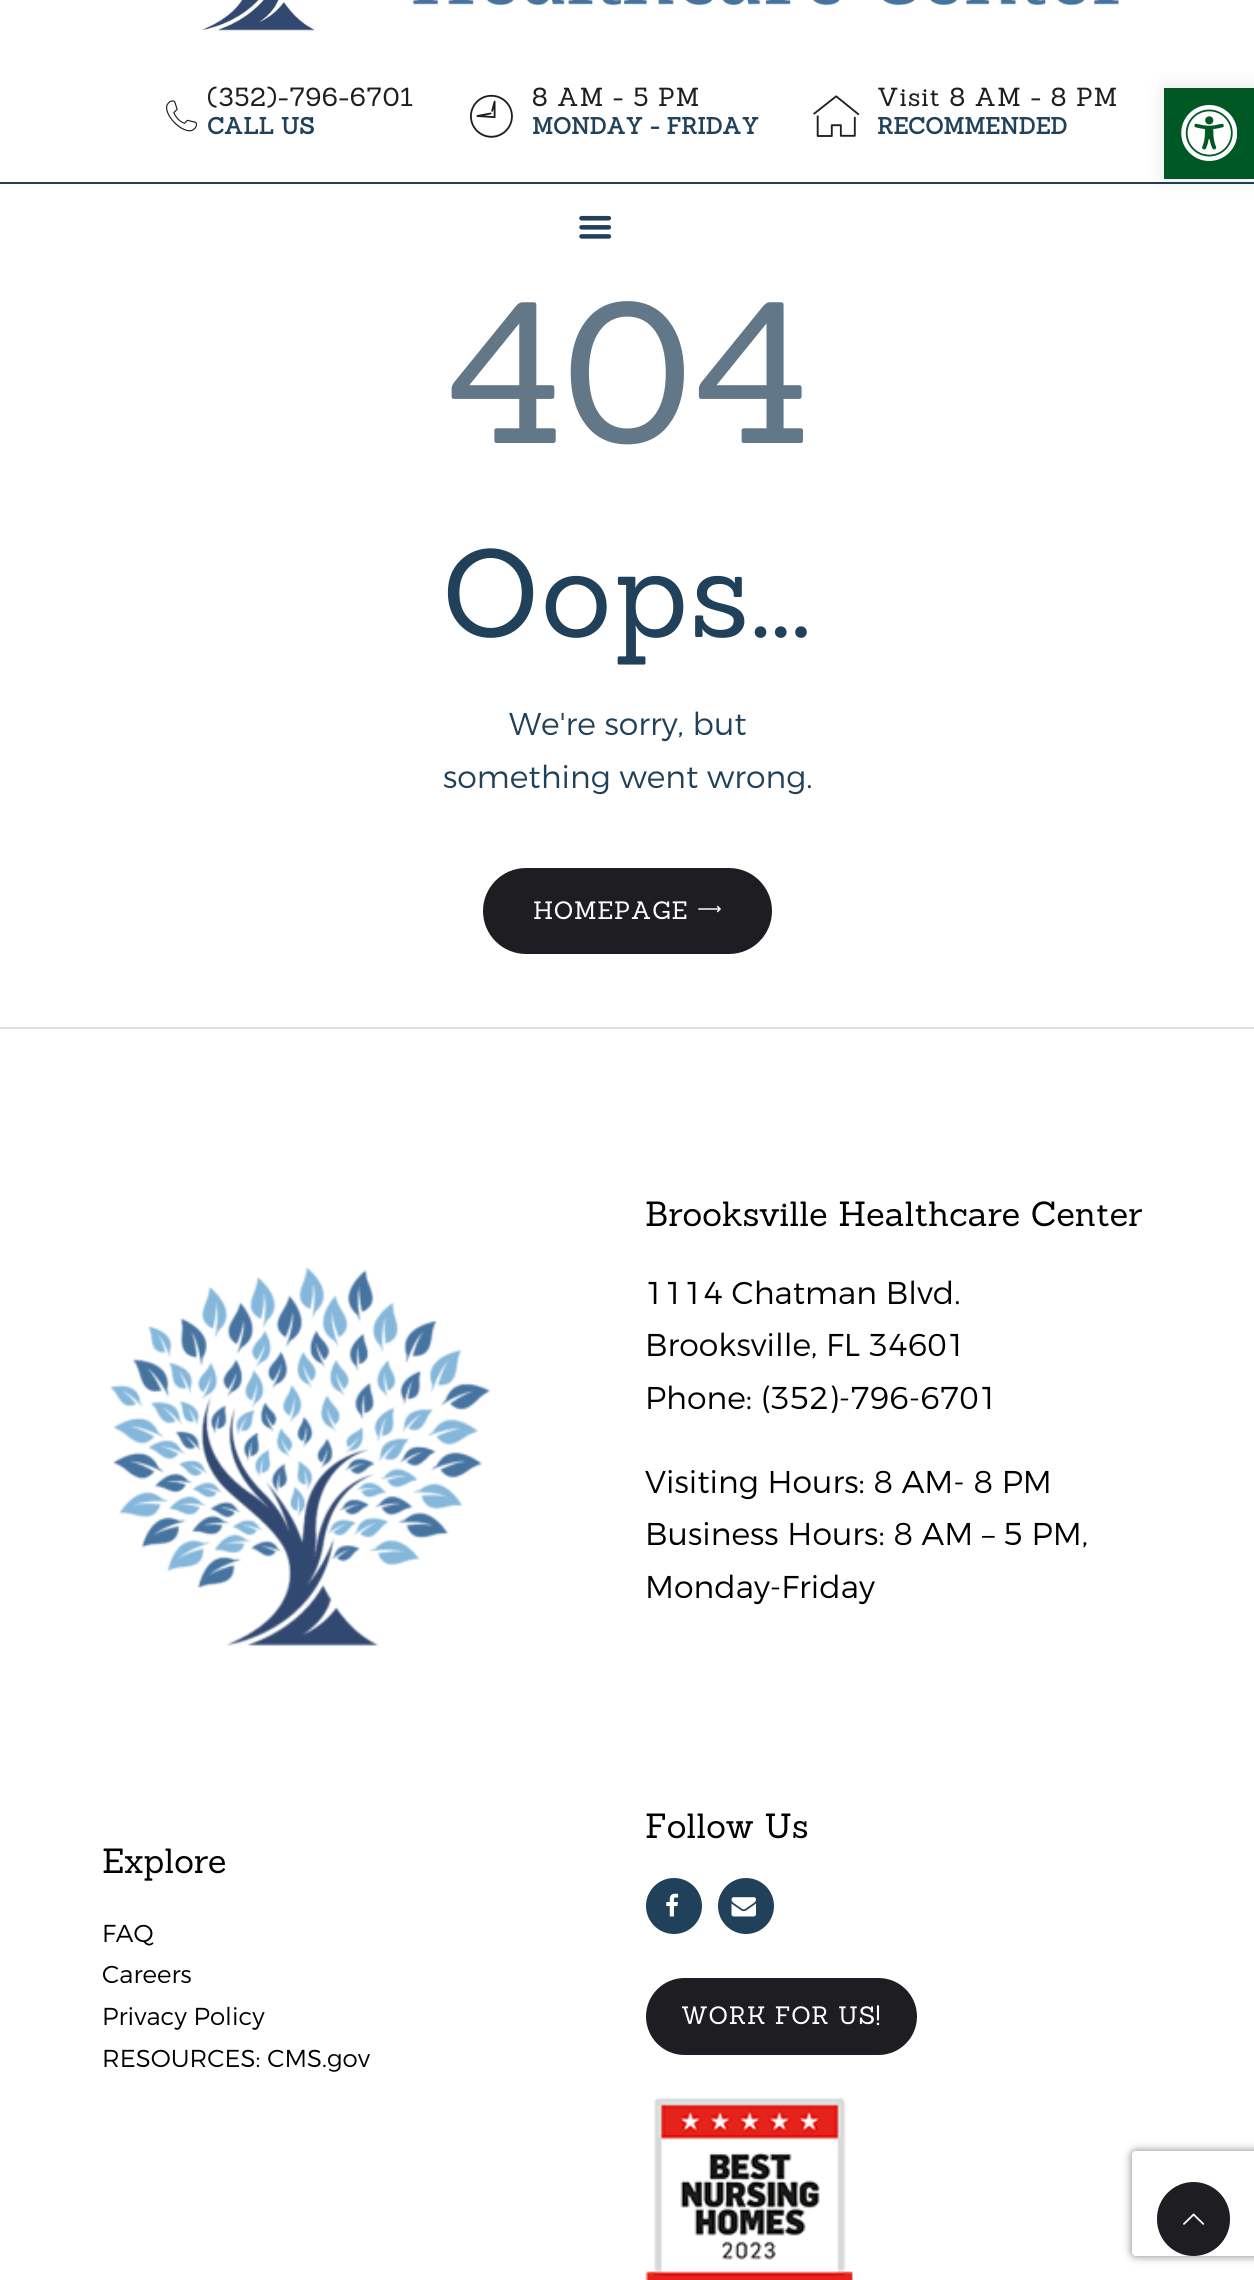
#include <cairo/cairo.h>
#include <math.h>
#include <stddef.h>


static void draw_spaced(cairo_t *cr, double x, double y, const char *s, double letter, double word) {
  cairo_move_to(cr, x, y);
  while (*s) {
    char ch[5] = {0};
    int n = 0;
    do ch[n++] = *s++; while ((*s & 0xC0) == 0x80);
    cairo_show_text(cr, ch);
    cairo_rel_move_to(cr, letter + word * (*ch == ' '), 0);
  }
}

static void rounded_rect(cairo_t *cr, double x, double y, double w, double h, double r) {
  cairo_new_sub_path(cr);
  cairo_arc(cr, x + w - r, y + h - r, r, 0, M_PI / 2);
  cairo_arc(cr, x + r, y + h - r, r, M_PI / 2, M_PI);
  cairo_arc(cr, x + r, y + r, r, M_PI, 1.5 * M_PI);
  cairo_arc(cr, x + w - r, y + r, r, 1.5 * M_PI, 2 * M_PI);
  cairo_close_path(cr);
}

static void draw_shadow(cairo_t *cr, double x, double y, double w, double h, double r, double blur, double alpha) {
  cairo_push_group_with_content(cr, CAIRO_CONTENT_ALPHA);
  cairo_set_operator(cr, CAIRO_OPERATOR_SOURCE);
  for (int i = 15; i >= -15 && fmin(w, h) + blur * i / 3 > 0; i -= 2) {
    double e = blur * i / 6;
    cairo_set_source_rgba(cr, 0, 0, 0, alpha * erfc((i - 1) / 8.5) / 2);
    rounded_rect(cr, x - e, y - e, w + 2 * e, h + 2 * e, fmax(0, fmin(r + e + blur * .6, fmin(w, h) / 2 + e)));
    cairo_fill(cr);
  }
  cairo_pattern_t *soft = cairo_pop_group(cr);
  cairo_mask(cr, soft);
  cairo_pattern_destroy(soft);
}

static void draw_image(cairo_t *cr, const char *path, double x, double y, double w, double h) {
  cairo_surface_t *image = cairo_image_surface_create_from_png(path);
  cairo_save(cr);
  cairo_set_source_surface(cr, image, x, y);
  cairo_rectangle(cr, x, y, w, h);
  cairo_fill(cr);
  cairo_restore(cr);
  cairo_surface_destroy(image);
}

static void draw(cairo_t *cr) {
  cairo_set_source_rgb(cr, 1, 1, 1);
  cairo_paint(cr);
  cairo_set_source_rgb(cr, 32 / 255.0, 65 / 255.0, 89 / 255.0);
  cairo_rectangle(cr, 0, 182, 1254, 2);
  cairo_fill(cr);
  draw_image(cr, "images/1.png", 202, 0, 919, 32);
  draw_image(cr, "images/2.png", 166, 100, 31, 32);
  draw_image(cr, "images/3.png", 470, 94, 43, 44);
  draw_image(cr, "images/4.png", 813, 95, 47, 42);
  draw_image(cr, "images/5.png", 579, 215, 33, 24);
  cairo_set_source_rgb(cr, 30 / 255.0, 29 / 255.0, 34 / 255.0);
  rounded_rect(cr, 483, 868, 289, 86, 43);
  cairo_fill(cr);
  draw_image(cr, "images/6.png", 698, 905, 23, 8);
  cairo_set_source_rgb(cr, 224 / 255.0, 224 / 255.0, 224 / 255.0);
  cairo_rectangle(cr, 0, 1027, 1254, 2);
  cairo_fill(cr);
  draw_image(cr, "images/7.png", 110, 1267, 381, 380);
  cairo_set_source_rgb(cr, 32 / 255.0, 65 / 255.0, 89 / 255.0);
  cairo_arc(cr, 674, 1906, 28, 0, 2 * M_PI);
  cairo_fill(cr);
  draw_image(cr, "images/8.png", 666, 1893, 13, 24);
  cairo_arc(cr, 746, 1906, 28, 0, 2 * M_PI);
  cairo_fill(cr);
  draw_image(cr, "images/9.png", 731, 1897, 25, 20);
  cairo_set_source_rgb(cr, 30 / 255.0, 29 / 255.0, 34 / 255.0);
  rounded_rect(cr, 646, 1978, 271, 77, 38.5);
  cairo_fill(cr);
  draw_image(cr, "images/10.png", 645, 2098, 208, 182);
  cairo_set_source_rgb(cr, 0, 0, 0);
  draw_shadow(cr, 1164, 88, 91, 91, 0, 9, 0.1);
  cairo_set_source_rgb(cr, 0, 88 / 255.0, 36 / 255.0);
  cairo_rectangle(cr, 1164, 88, 90, 91);
  cairo_fill(cr);
  draw_image(cr, "images/11.png", 1181, 105, 56, 56);
  cairo_save(cr);
  cairo_set_fill_rule(cr, CAIRO_FILL_RULE_EVEN_ODD);
  cairo_new_path(cr);
  cairo_move_to(cr, 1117, 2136);
  cairo_line_to(cr, 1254, 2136);
  cairo_line_to(cr, 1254, 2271);
  cairo_line_to(cr, 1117, 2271);
  cairo_close_path(cr);
  cairo_move_to(cr, 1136, 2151);
  cairo_line_to(cr, 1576, 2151);
  cairo_curve_to(cr, 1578, 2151, 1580, 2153, 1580, 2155);
  cairo_line_to(cr, 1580, 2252);
  cairo_curve_to(cr, 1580, 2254, 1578, 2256, 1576, 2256);
  cairo_line_to(cr, 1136, 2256);
  cairo_curve_to(cr, 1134, 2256, 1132, 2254, 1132, 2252);
  cairo_line_to(cr, 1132, 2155);
  cairo_curve_to(cr, 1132, 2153, 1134, 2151, 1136, 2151);
  cairo_close_path(cr);
  cairo_clip(cr);
  cairo_set_source_rgb(cr, 128 / 255.0, 128 / 255.0, 128 / 255.0);
  draw_shadow(cr, 1132, 2151, 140, 105, 4, 4.5, 1);
  cairo_restore(cr);
  cairo_set_source_rgb(cr, 30 / 255.0, 29 / 255.0, 34 / 255.0);
  rounded_rect(cr, 1157, 2182, 73, 74, 36.5);
  cairo_fill(cr);
  draw_image(cr, "images/12.png", 1183, 2213, 22, 12);
  cairo_select_font_face(cr, "Sanchez", CAIRO_FONT_SLANT_NORMAL, CAIRO_FONT_WEIGHT_NORMAL);
  cairo_set_font_size(cr, 25.5);
  draw_spaced(cr, 207, 106, "(352)-796-6701", 0.9, 0);
  cairo_select_font_face(cr, "Sanchez", CAIRO_FONT_SLANT_NORMAL, CAIRO_FONT_WEIGHT_BOLD);
  cairo_set_font_size(cr, 22.75);
  cairo_set_source_rgb(cr, 32 / 255.0, 65 / 255.0, 89 / 255.0);
  cairo_move_to(cr, 207, 134);
  cairo_show_text(cr, "CALL US");
  cairo_select_font_face(cr, "Sanchez", CAIRO_FONT_SLANT_NORMAL, CAIRO_FONT_WEIGHT_NORMAL);
  cairo_set_font_size(cr, 25.5);
  cairo_set_source_rgb(cr, 30 / 255.0, 29 / 255.0, 34 / 255.0);
  draw_spaced(cr, 532, 106, "8 AM - 5 PM", 0.9, 0);
  cairo_select_font_face(cr, "Sanchez", CAIRO_FONT_SLANT_NORMAL, CAIRO_FONT_WEIGHT_BOLD);
  cairo_set_font_size(cr, 22.75);
  cairo_set_source_rgb(cr, 32 / 255.0, 65 / 255.0, 89 / 255.0);
  cairo_move_to(cr, 532, 134);
  cairo_show_text(cr, "MONDAY - FRIDAY");
  cairo_select_font_face(cr, "Sanchez", CAIRO_FONT_SLANT_NORMAL, CAIRO_FONT_WEIGHT_NORMAL);
  cairo_set_font_size(cr, 25.5);
  cairo_set_source_rgb(cr, 30 / 255.0, 29 / 255.0, 34 / 255.0);
  draw_spaced(cr, 877, 106, "Visit 8 AM - 8 PM", 0.9, 0);
  cairo_select_font_face(cr, "Sanchez", CAIRO_FONT_SLANT_NORMAL, CAIRO_FONT_WEIGHT_BOLD);
  cairo_set_font_size(cr, 22.75);
  cairo_set_source_rgb(cr, 32 / 255.0, 65 / 255.0, 89 / 255.0);
  cairo_move_to(cr, 877, 134);
  cairo_show_text(cr, "RECOMMENDED");
  cairo_select_font_face(cr, "Sanchez", CAIRO_FONT_SLANT_NORMAL, CAIRO_FONT_WEIGHT_NORMAL);
  cairo_set_font_size(cr, 196);
  cairo_set_source_rgb(cr, 98 / 255.0, 119 / 255.0, 135 / 255.0);
  cairo_move_to(cr, 444, 443);
  cairo_show_text(cr, "404");
  cairo_set_font_size(cr, 122.5);
  cairo_set_source_rgb(cr, 32 / 255.0, 65 / 255.0, 89 / 255.0);
  draw_spaced(cr, 442, 637, "Oops...", 1.75, 0);
  cairo_select_font_face(cr, "Montserrat Light", CAIRO_FONT_SLANT_NORMAL, CAIRO_FONT_WEIGHT_NORMAL);
  cairo_set_font_size(cr, 31.5);
  draw_spaced(cr, 509, 735, "We're sorry, but", 0.05, 0);
  draw_spaced(cr, 443, 788, "something went wrong.", 0.05, 0);
  cairo_select_font_face(cr, "Sanchez", CAIRO_FONT_SLANT_NORMAL, CAIRO_FONT_WEIGHT_NORMAL);
  cairo_set_font_size(cr, 24.5);
  cairo_set_source_rgb(cr, 1, 1, 1);
  draw_spaced(cr, 533, 919, "HOMEPAGE", 0.75, 0);
  cairo_set_font_size(cr, 34.1);
  cairo_set_source_rgb(cr, 0, 0, 0);
  cairo_move_to(cr, 645, 1226);
  cairo_show_text(cr, "Brooksville Healthcare Center");
  cairo_select_font_face(cr, "Montserrat Light", CAIRO_FONT_SLANT_NORMAL, CAIRO_FONT_WEIGHT_NORMAL);
  cairo_set_font_size(cr, 31.5);
  draw_spaced(cr, 645, 1304, "1114 Chatman Blvd.", 0.05, 0);
  draw_spaced(cr, 645, 1356, "Brooksville, FL 34601", 0.05, 0);
  draw_spaced(cr, 645, 1409, "Phone: (352)-796-6701", 0.05, 0);
  draw_spaced(cr, 645, 1493, "Visiting Hours: 8 AM- 8 PM", 0.05, 0);
  draw_spaced(cr, 645, 1545, "Business Hours: 8 AM – 5 PM,", 0.05, 0);
  draw_spaced(cr, 645, 1598, "Monday-Friday", 0.05, 0);
  cairo_select_font_face(cr, "Sanchez", CAIRO_FONT_SLANT_NORMAL, CAIRO_FONT_WEIGHT_NORMAL);
  cairo_set_font_size(cr, 34.1);
  cairo_move_to(cr, 102, 1873);
  cairo_show_text(cr, "Explore");
  cairo_select_font_face(cr, "Montserrat Light", CAIRO_FONT_SLANT_NORMAL, CAIRO_FONT_WEIGHT_NORMAL);
  cairo_set_font_size(cr, 24.5);
  draw_spaced(cr, 102, 1942, "FAQ", 0.05, 0);
  draw_spaced(cr, 102, 1983, "Careers", 0.05, 0);
  draw_spaced(cr, 102, 2025, "Privacy Policy", 0.05, 0);
  draw_spaced(cr, 102, 2067, "RESOURCES: CMS.gov", 0.05, 0);
  cairo_select_font_face(cr, "Sanchez", CAIRO_FONT_SLANT_NORMAL, CAIRO_FONT_WEIGHT_NORMAL);
  cairo_set_font_size(cr, 34.1);
  cairo_move_to(cr, 645, 1838);
  cairo_show_text(cr, "Follow Us");
  cairo_set_font_size(cr, 24.5);
  cairo_set_source_rgb(cr, 1, 1, 1);
  draw_spaced(cr, 681, 2024, "WORK FOR US!", 0.75, 0);
}

int main(void) {
  cairo_surface_t *surface = cairo_image_surface_create(CAIRO_FORMAT_RGB24, 1254, 2280);
  cairo_t *cr = cairo_create(surface);
  cairo_font_options_t *options = cairo_font_options_create();
  cairo_font_options_set_hint_metrics(options, CAIRO_HINT_METRICS_OFF);
  cairo_font_options_set_hint_style(options, CAIRO_HINT_STYLE_NONE);
  cairo_set_font_options(cr, options);
  cairo_set_miter_limit(cr, 4);
  draw(cr);
  cairo_surface_write_to_png(surface, "out.png");
  cairo_font_options_destroy(options);
  cairo_destroy(cr);
  cairo_surface_destroy(surface);
  return 0;
}
